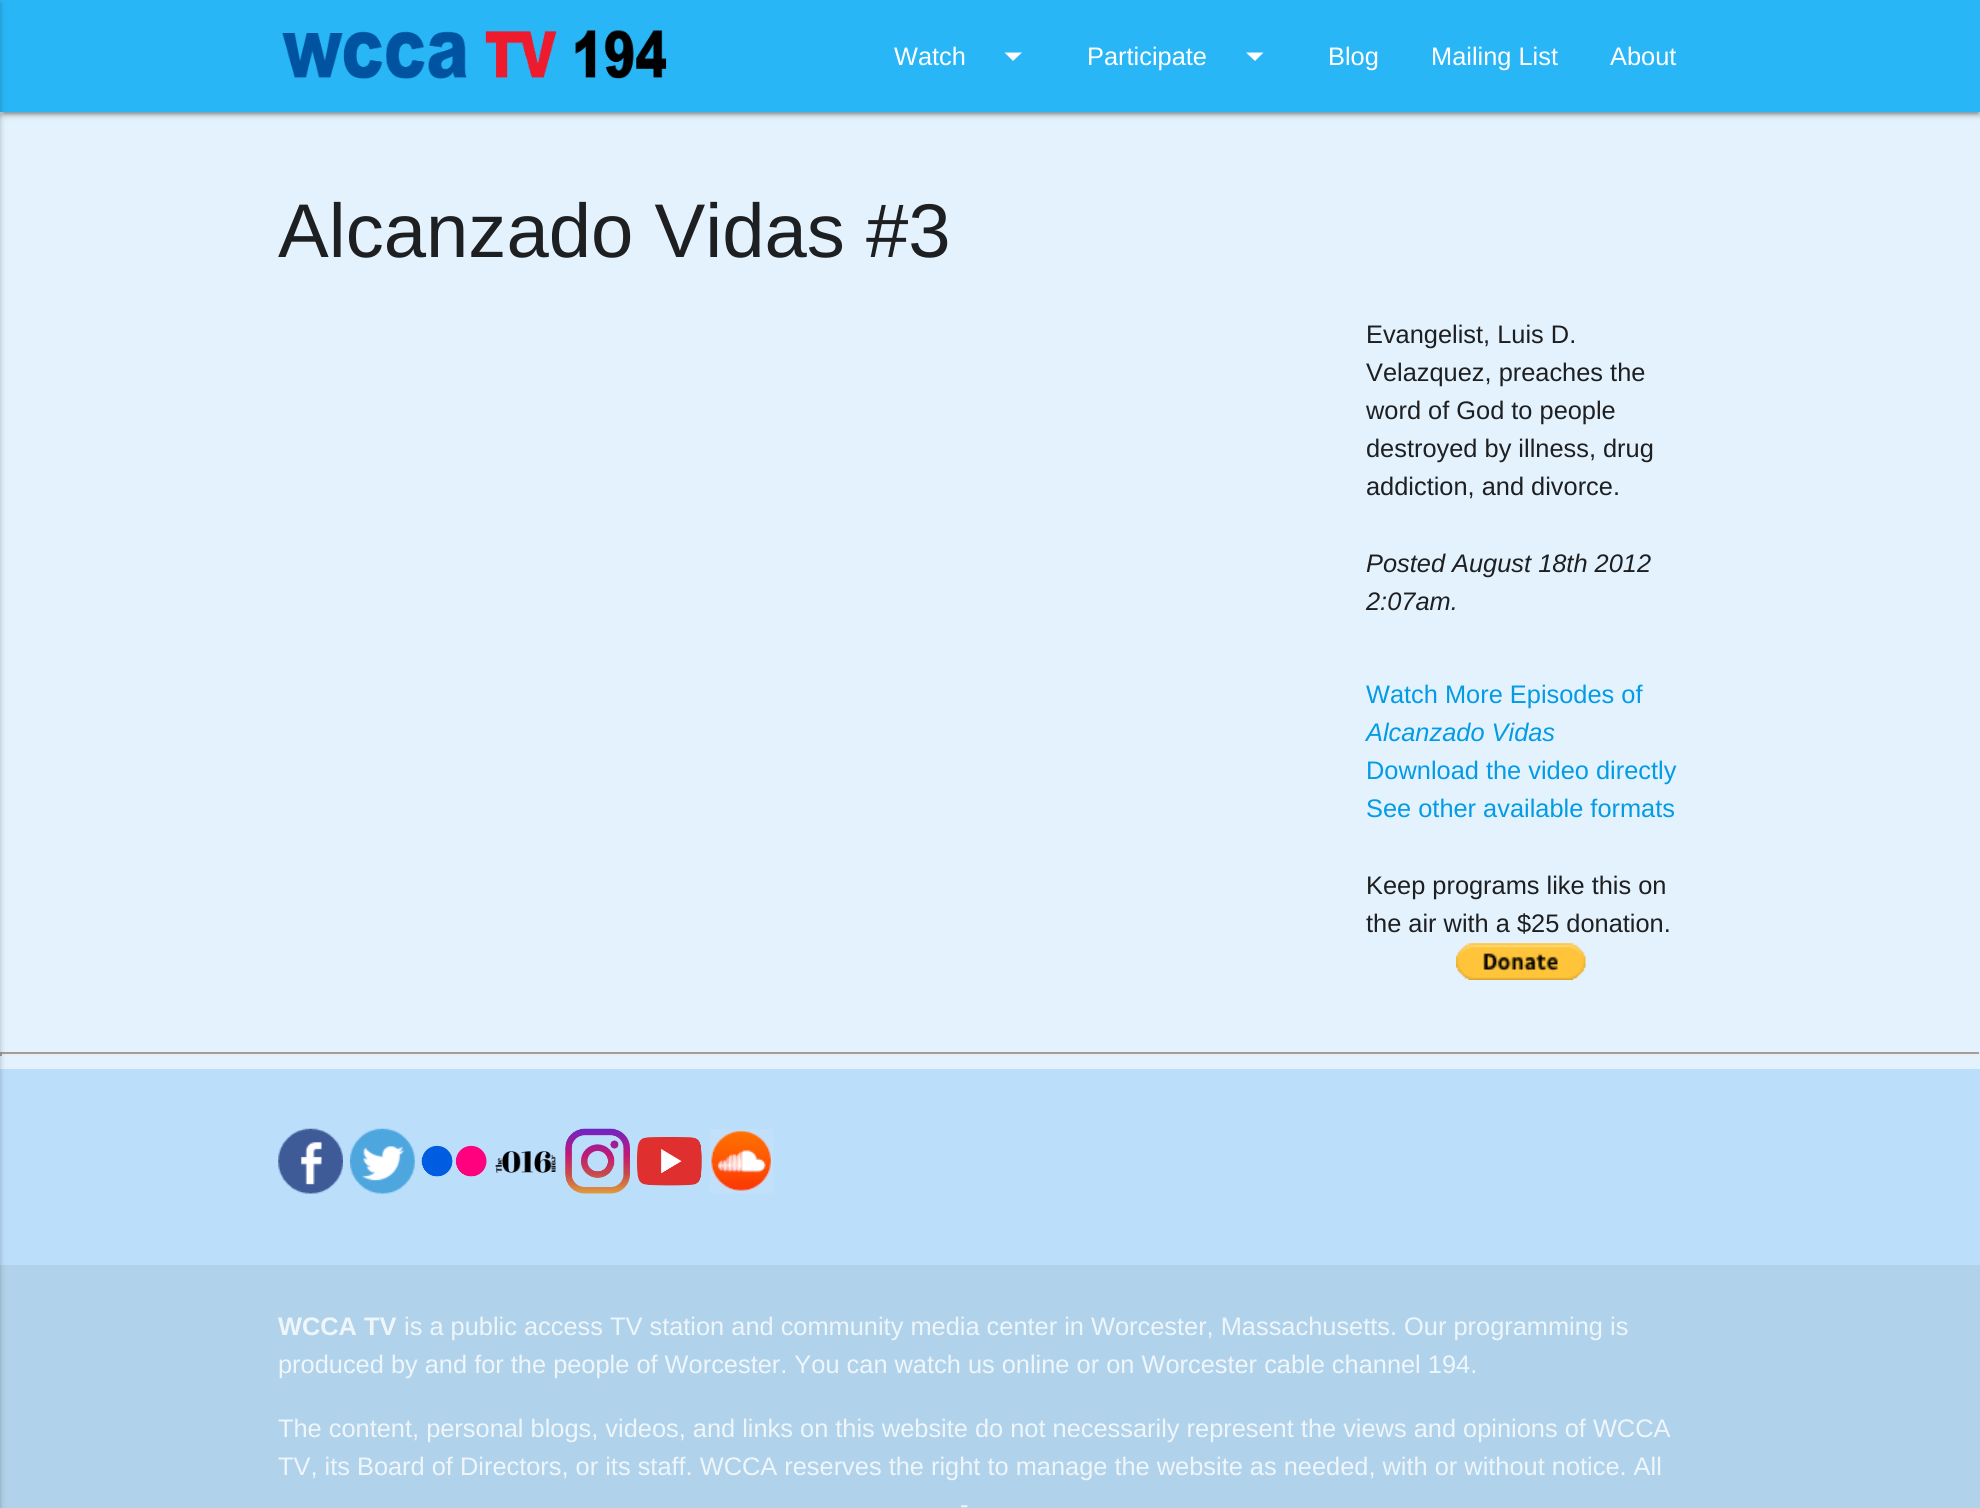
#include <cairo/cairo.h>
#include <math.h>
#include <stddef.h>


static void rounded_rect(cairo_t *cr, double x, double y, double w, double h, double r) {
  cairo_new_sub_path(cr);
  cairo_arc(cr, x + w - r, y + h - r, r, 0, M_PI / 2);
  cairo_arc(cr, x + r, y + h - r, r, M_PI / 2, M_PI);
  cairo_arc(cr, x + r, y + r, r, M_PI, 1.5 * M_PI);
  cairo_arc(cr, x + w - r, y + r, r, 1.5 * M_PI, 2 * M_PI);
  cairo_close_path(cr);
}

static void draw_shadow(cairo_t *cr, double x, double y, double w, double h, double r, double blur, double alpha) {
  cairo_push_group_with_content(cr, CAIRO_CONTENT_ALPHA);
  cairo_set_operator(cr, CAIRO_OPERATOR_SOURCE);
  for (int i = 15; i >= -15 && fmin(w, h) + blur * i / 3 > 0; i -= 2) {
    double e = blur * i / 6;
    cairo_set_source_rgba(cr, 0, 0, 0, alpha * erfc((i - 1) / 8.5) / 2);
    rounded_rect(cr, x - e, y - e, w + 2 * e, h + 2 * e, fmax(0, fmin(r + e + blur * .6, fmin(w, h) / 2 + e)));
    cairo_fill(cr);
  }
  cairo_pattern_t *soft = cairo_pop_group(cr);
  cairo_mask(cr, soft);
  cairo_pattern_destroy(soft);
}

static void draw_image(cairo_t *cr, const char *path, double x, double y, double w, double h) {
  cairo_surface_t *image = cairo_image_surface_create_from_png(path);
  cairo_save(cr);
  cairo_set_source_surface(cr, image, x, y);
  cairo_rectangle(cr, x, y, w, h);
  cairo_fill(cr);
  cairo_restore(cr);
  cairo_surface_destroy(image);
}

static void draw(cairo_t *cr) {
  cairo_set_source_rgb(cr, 227 / 255.0, 242 / 255.0, 253 / 255.0);
  cairo_paint(cr);
  cairo_set_source_rgb(cr, 0, 0, 0);
  draw_shadow(cr, 4, 9, 1974, 105, 0, 1, 0.2);
  draw_shadow(cr, 0, 2, 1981, 112, 0, 4.5, 0.12);
  draw_shadow(cr, 0, 4, 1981, 112, 0, 2, 0.14);
  cairo_set_source_rgb(cr, 41 / 255.0, 182 / 255.0, 246 / 255.0);
  cairo_rectangle(cr, 0, 0, 1980, 112);
  cairo_fill(cr);
  cairo_set_source_rgb(cr, 159 / 255.0, 159 / 255.0, 159 / 255.0);
  cairo_rectangle(cr, 0, 1052, 1980, 2);
  cairo_fill(cr);
  cairo_set_source_rgb(cr, 238 / 255.0, 238 / 255.0, 238 / 255.0);
  cairo_rectangle(cr, 1979, 1052, 1, 4);
  cairo_fill(cr);
  cairo_rectangle(cr, 0, 1054, 1980, 2);
  cairo_fill(cr);
  cairo_set_source_rgb(cr, 159 / 255.0, 159 / 255.0, 159 / 255.0);
  cairo_rectangle(cr, 0, 1052, 2, 4);
  cairo_fill(cr);
  cairo_set_source_rgb(cr, 187 / 255.0, 222 / 255.0, 251 / 255.0);
  cairo_rectangle(cr, 0, 1069, 1980, 196);
  cairo_fill(cr);
  cairo_set_source_rgb(cr, 176 / 255.0, 210 / 255.0, 234 / 255.0);
  cairo_rectangle(cr, 0, 1265, 1980, 243);
  cairo_fill(cr);
  cairo_set_source_rgb(cr, 0, 0, 0);
  draw_shadow(cr, -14, 2, 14, 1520, 0, 4.5, 0.12);
  draw_shadow(cr, -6, 4, 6, 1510, 0, 2, 0.14);
  draw_image(cr, "images/1.png", 282, 30, 385, 49);
  cairo_set_source_rgb(cr, 1, 1, 1);
  cairo_new_path(cr);
  cairo_move_to(cr, 1004.5, 52.5);
  cairo_line_to(cr, 1022, 52.5);
  cairo_line_to(cr, 1013, 61);
  cairo_close_path(cr);
  cairo_fill(cr);
  cairo_new_path(cr);
  cairo_move_to(cr, 1246, 52.5);
  cairo_line_to(cr, 1263.5, 52.5);
  cairo_line_to(cr, 1255, 61);
  cairo_close_path(cr);
  cairo_fill(cr);
  draw_image(cr, "images/2.png", 1456, 943, 130, 37);
  draw_image(cr, "images/3.png", 278, 1128, 65, 66);
  draw_image(cr, "images/4.png", 350, 1128, 65, 66);
  draw_image(cr, "images/5.png", 421, 1145, 66, 32);
  draw_image(cr, "images/6.png", 495, 1151, 61, 22);
  draw_image(cr, "images/7.png", 565, 1128, 65, 66);
  draw_image(cr, "images/8.png", 637, 1137, 65, 49);
  draw_image(cr, "images/9.png", 709, 1129, 65, 65);
  cairo_select_font_face(cr, "Liberation Sans", CAIRO_FONT_SLANT_NORMAL, CAIRO_FONT_WEIGHT_NORMAL);
  cairo_set_font_size(cr, 25.38);
  cairo_move_to(cr, 894, 65);
  cairo_show_text(cr, "Watch");
  cairo_move_to(cr, 1087, 65);
  cairo_show_text(cr, "Participate");
  cairo_move_to(cr, 1328, 65);
  cairo_show_text(cr, "Blog");
  cairo_move_to(cr, 1431, 65);
  cairo_show_text(cr, "Mailing List");
  cairo_move_to(cr, 1610, 65);
  cairo_show_text(cr, "About");
  cairo_set_font_size(cr, 76.1);
  cairo_set_source_rgb(cr, 30 / 255.0, 31 / 255.0, 33 / 255.0);
  cairo_move_to(cr, 278, 257);
  cairo_show_text(cr, "Alcanzado Vidas #3");
  cairo_set_font_size(cr, 25.38);
  cairo_move_to(cr, 1366, 343);
  cairo_show_text(cr, "Evangelist, Luis D.");
  cairo_move_to(cr, 1366, 381);
  cairo_show_text(cr, "Velazquez, preaches the");
  cairo_move_to(cr, 1366, 419);
  cairo_show_text(cr, "word of God to people");
  cairo_move_to(cr, 1366, 457);
  cairo_show_text(cr, "destroyed by illness, drug");
  cairo_move_to(cr, 1366, 495);
  cairo_show_text(cr, "addiction, and divorce.");
  cairo_select_font_face(cr, "Liberation Sans", CAIRO_FONT_SLANT_ITALIC, CAIRO_FONT_WEIGHT_NORMAL);
  cairo_move_to(cr, 1366, 572);
  cairo_show_text(cr, "Posted August 18th 2012");
  cairo_move_to(cr, 1366, 610);
  cairo_show_text(cr, "2:07am.");
  cairo_select_font_face(cr, "Liberation Sans", CAIRO_FONT_SLANT_NORMAL, CAIRO_FONT_WEIGHT_NORMAL);
  cairo_set_source_rgb(cr, 3 / 255.0, 155 / 255.0, 229 / 255.0);
  cairo_move_to(cr, 1366, 703);
  cairo_show_text(cr, "Watch More Episodes of");
  cairo_select_font_face(cr, "Liberation Sans", CAIRO_FONT_SLANT_ITALIC, CAIRO_FONT_WEIGHT_NORMAL);
  cairo_move_to(cr, 1366, 741);
  cairo_show_text(cr, "Alcanzado Vidas");
  cairo_select_font_face(cr, "Liberation Sans", CAIRO_FONT_SLANT_NORMAL, CAIRO_FONT_WEIGHT_NORMAL);
  cairo_move_to(cr, 1366, 779);
  cairo_show_text(cr, "Download the video directly");
  cairo_move_to(cr, 1366, 817);
  cairo_show_text(cr, "See other available formats");
  cairo_set_source_rgb(cr, 30 / 255.0, 31 / 255.0, 33 / 255.0);
  cairo_move_to(cr, 1366, 894);
  cairo_show_text(cr, "Keep programs like this on");
  cairo_move_to(cr, 1366, 932);
  cairo_show_text(cr, "the air with a $25 donation.");
  cairo_select_font_face(cr, "Liberation Sans", CAIRO_FONT_SLANT_NORMAL, CAIRO_FONT_WEIGHT_BOLD);
  cairo_set_source_rgb(cr, 239 / 255.0, 246 / 255.0, 251 / 255.0);
  cairo_move_to(cr, 278, 1335);
  cairo_show_text(cr, "WCCA TV");
  cairo_select_font_face(cr, "Liberation Sans", CAIRO_FONT_SLANT_NORMAL, CAIRO_FONT_WEIGHT_NORMAL);
  cairo_move_to(cr, 404, 1335);
  cairo_show_text(cr, "is a public access TV station and community media center in Worcester, Massachusetts. Our programming is");
  cairo_move_to(cr, 278, 1373);
  cairo_show_text(cr, "produced by and for the people of Worcester. You can watch us online or on Worcester cable channel 194.");
  cairo_move_to(cr, 278, 1437);
  cairo_show_text(cr, "The content, personal blogs, videos, and links on this website do not necessarily represent the views and opinions of WCCA");
  cairo_move_to(cr, 278, 1475);
  cairo_show_text(cr, "TV, its Board of Directors, or its staff. WCCA reserves the right to manage the website as needed, with or without notice. All");
  cairo_move_to(cr, 960, 1513);
  cairo_show_text(cr, "-");
}

int main(void) {
  cairo_surface_t *surface = cairo_image_surface_create(CAIRO_FORMAT_RGB24, 1980, 1508);
  cairo_t *cr = cairo_create(surface);
  cairo_font_options_t *options = cairo_font_options_create();
  cairo_font_options_set_hint_metrics(options, CAIRO_HINT_METRICS_OFF);
  cairo_font_options_set_hint_style(options, CAIRO_HINT_STYLE_NONE);
  cairo_set_font_options(cr, options);
  cairo_set_miter_limit(cr, 4);
  draw(cr);
  cairo_surface_write_to_png(surface, "out.png");
  cairo_font_options_destroy(options);
  cairo_destroy(cr);
  cairo_surface_destroy(surface);
  return 0;
}
